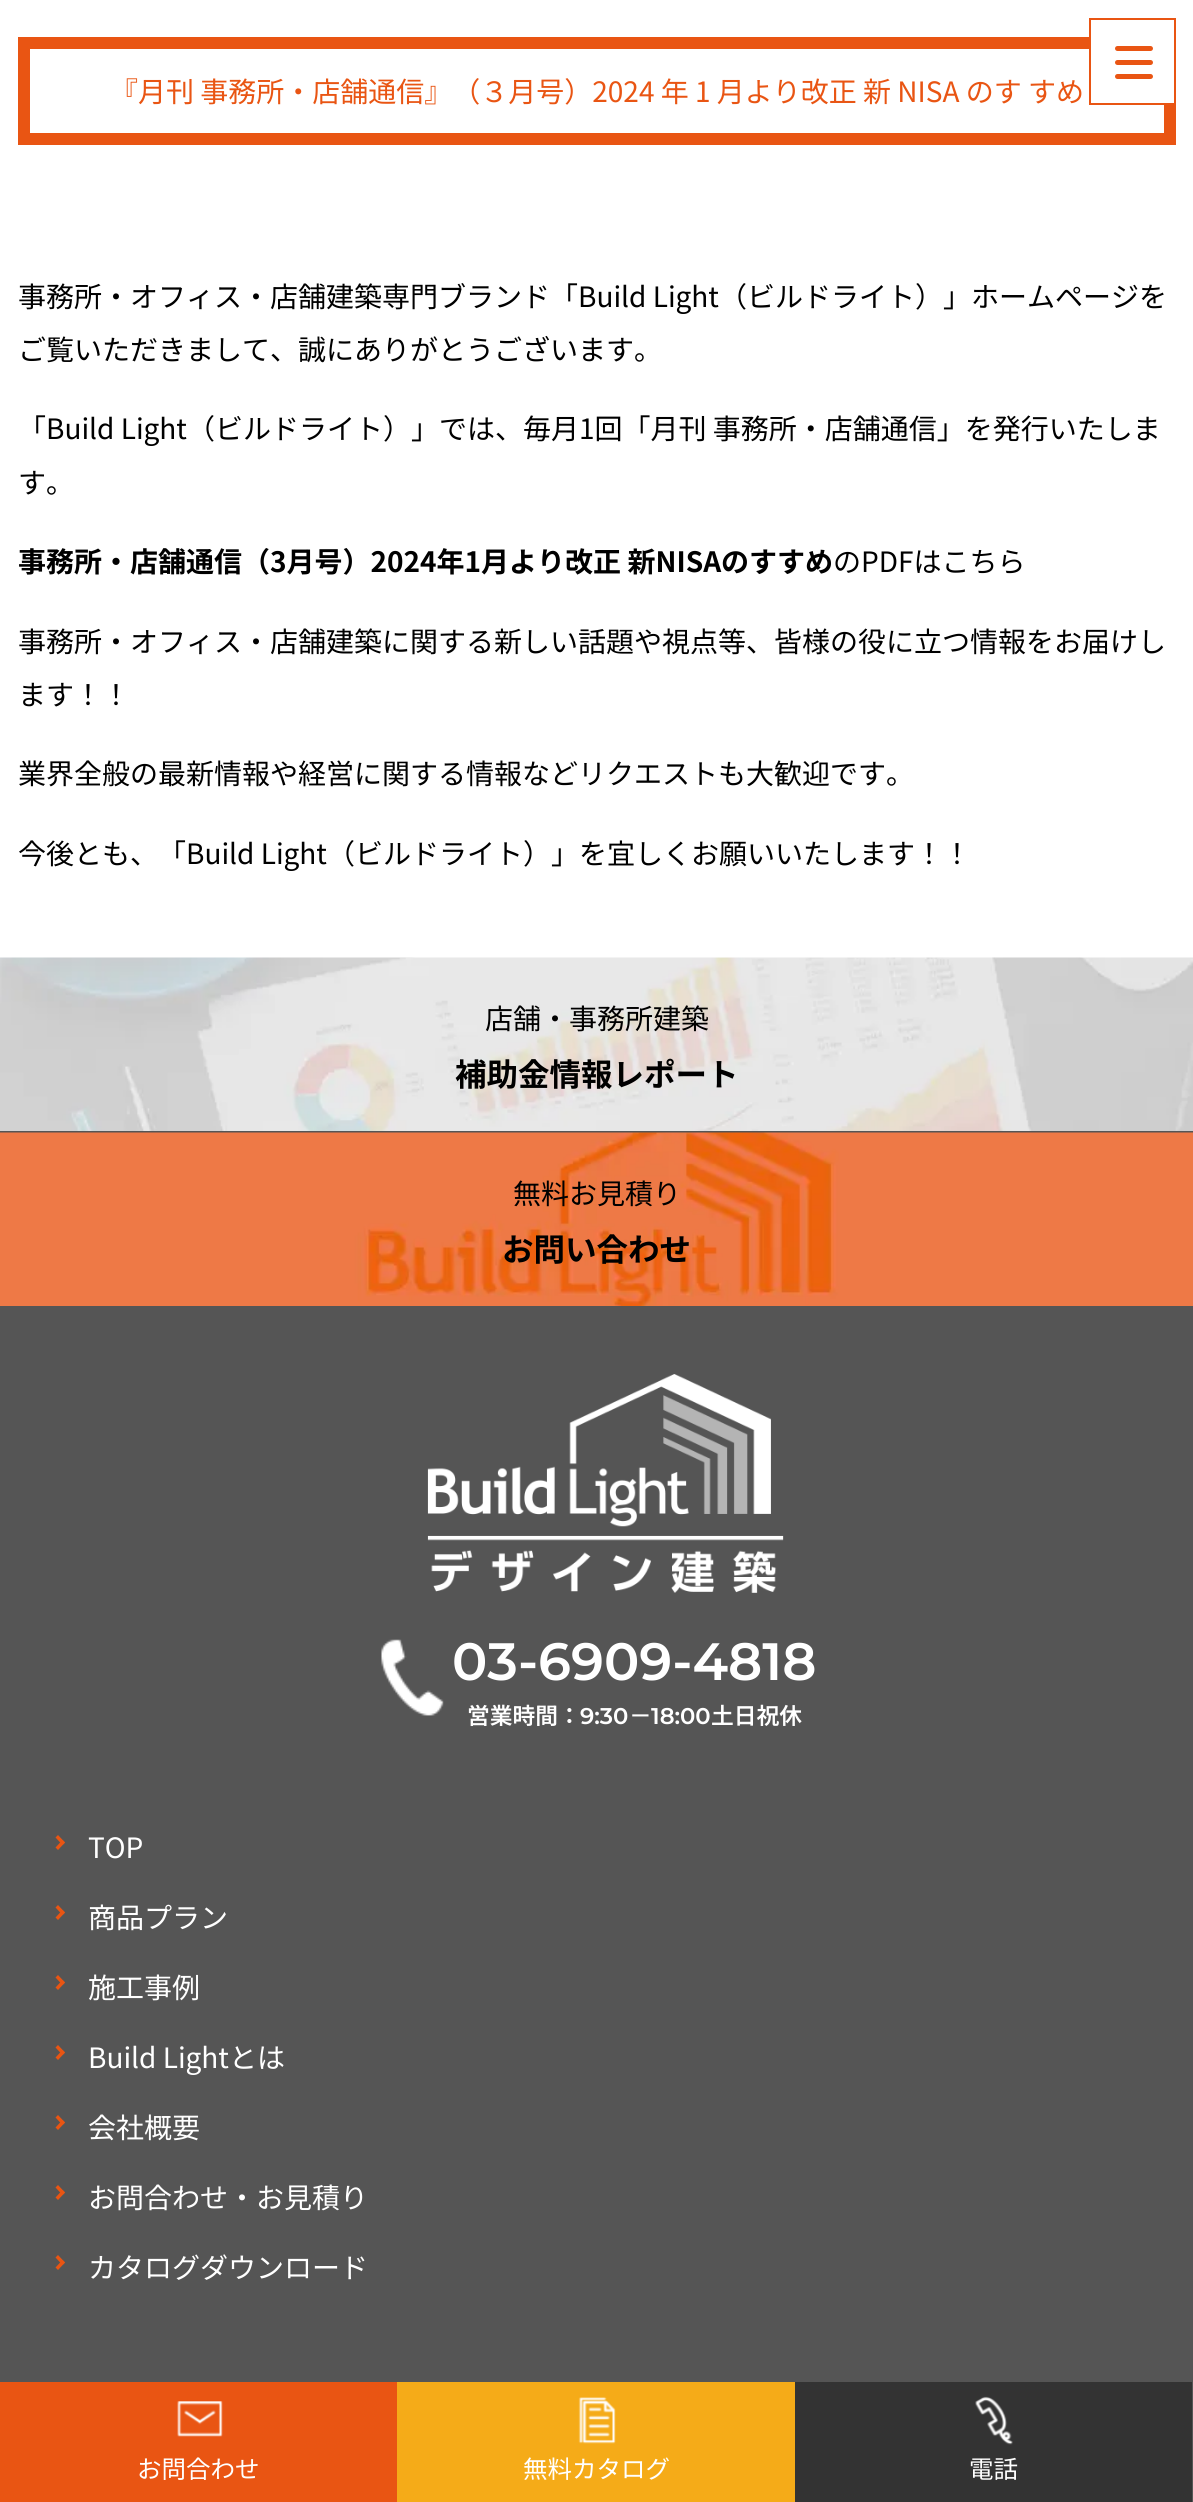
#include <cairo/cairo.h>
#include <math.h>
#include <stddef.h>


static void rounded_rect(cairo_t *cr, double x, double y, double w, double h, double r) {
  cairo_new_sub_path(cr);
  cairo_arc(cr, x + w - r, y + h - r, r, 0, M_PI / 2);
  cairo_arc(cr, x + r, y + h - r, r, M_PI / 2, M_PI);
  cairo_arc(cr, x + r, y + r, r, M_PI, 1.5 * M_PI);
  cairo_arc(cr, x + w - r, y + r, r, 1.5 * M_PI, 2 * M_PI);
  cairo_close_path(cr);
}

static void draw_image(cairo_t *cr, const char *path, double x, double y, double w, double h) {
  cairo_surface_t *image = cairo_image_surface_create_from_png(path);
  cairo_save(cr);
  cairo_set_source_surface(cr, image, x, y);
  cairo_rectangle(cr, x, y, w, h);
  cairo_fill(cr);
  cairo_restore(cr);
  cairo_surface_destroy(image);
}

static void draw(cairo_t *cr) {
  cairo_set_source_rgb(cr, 1, 1, 1);
  cairo_paint(cr);
  cairo_rectangle(cr, 24, 43, 1146, 96);
  cairo_set_source_rgb(cr, 233 / 255.0, 85 / 255.0, 19 / 255.0);
  cairo_set_line_width(cr, 12);
  cairo_stroke(cr);
  cairo_set_source_rgb(cr, 1, 1, 1);
  cairo_rectangle(cr, 1091, 37, 83, 66);
  cairo_fill(cr);
  cairo_rectangle(cr, 1090, 19, 85, 85);
  cairo_set_source_rgb(cr, 233 / 255.0, 85 / 255.0, 19 / 255.0);
  cairo_set_line_width(cr, 2);
  cairo_stroke(cr);
  rounded_rect(cr, 1115, 46, 38, 5, 2.5);
  cairo_fill(cr);
  rounded_rect(cr, 1115, 60, 38, 5, 2.5);
  cairo_fill(cr);
  rounded_rect(cr, 1115, 74, 38, 5, 2.5);
  cairo_fill(cr);
  draw_image(cr, "images/1.png", 0, 957, 1193, 174);
  cairo_set_source_rgb(cr, 85 / 255.0, 85 / 255.0, 85 / 255.0);
  cairo_rectangle(cr, 0, 1131, 1193, 2);
  cairo_fill(cr);
  draw_image(cr, "images/2.png", 0, 1132, 1193, 174);
  cairo_rectangle(cr, 0, 1306, 1193, 1196);
  cairo_fill(cr);
  draw_image(cr, "images/3.png", 427, 1374, 357, 219);
  draw_image(cr, "images/4.png", 381, 1639, 63, 77);
  cairo_set_source_rgb(cr, 233 / 255.0, 85 / 255.0, 19 / 255.0);
  cairo_new_path(cr);
  cairo_move_to(cr, 58, 1835);
  cairo_line_to(cr, 65, 1842.5);
  cairo_line_to(cr, 62.5, 1845);
  cairo_line_to(cr, 55.5, 1837.5);
  cairo_close_path(cr);
  cairo_fill(cr);
  cairo_new_path(cr);
  cairo_move_to(cr, 62.5, 1840);
  cairo_line_to(cr, 65, 1842.5);
  cairo_line_to(cr, 58, 1850);
  cairo_line_to(cr, 55.5, 1847.5);
  cairo_close_path(cr);
  cairo_fill(cr);
  cairo_new_path(cr);
  cairo_move_to(cr, 58, 1905);
  cairo_line_to(cr, 65, 1912.5);
  cairo_line_to(cr, 62.5, 1915);
  cairo_line_to(cr, 55.5, 1907.5);
  cairo_close_path(cr);
  cairo_fill(cr);
  cairo_new_path(cr);
  cairo_move_to(cr, 62.5, 1910);
  cairo_line_to(cr, 65, 1912.5);
  cairo_line_to(cr, 58, 1920);
  cairo_line_to(cr, 55.5, 1917.5);
  cairo_close_path(cr);
  cairo_fill(cr);
  cairo_new_path(cr);
  cairo_move_to(cr, 58, 1975);
  cairo_line_to(cr, 65, 1982.5);
  cairo_line_to(cr, 62.5, 1985);
  cairo_line_to(cr, 55.5, 1977.5);
  cairo_close_path(cr);
  cairo_fill(cr);
  cairo_new_path(cr);
  cairo_move_to(cr, 62.5, 1980);
  cairo_line_to(cr, 65, 1982.5);
  cairo_line_to(cr, 58, 1990);
  cairo_line_to(cr, 55.5, 1987.5);
  cairo_close_path(cr);
  cairo_fill(cr);
  cairo_new_path(cr);
  cairo_move_to(cr, 58, 2045);
  cairo_line_to(cr, 65, 2052.5);
  cairo_line_to(cr, 62.5, 2055);
  cairo_line_to(cr, 55.5, 2047.5);
  cairo_close_path(cr);
  cairo_fill(cr);
  cairo_new_path(cr);
  cairo_move_to(cr, 62.5, 2050);
  cairo_line_to(cr, 65, 2052.5);
  cairo_line_to(cr, 58, 2060);
  cairo_line_to(cr, 55.5, 2057.5);
  cairo_close_path(cr);
  cairo_fill(cr);
  cairo_new_path(cr);
  cairo_move_to(cr, 58, 2115);
  cairo_line_to(cr, 65, 2122.5);
  cairo_line_to(cr, 62.5, 2125);
  cairo_line_to(cr, 55.5, 2117.5);
  cairo_close_path(cr);
  cairo_fill(cr);
  cairo_new_path(cr);
  cairo_move_to(cr, 62.5, 2120);
  cairo_line_to(cr, 65, 2122.5);
  cairo_line_to(cr, 58, 2130);
  cairo_line_to(cr, 55.5, 2127.5);
  cairo_close_path(cr);
  cairo_fill(cr);
  cairo_new_path(cr);
  cairo_move_to(cr, 58, 2185);
  cairo_line_to(cr, 65, 2192.5);
  cairo_line_to(cr, 62.5, 2195);
  cairo_line_to(cr, 55.5, 2187.5);
  cairo_close_path(cr);
  cairo_fill(cr);
  cairo_new_path(cr);
  cairo_move_to(cr, 62.5, 2190);
  cairo_line_to(cr, 65, 2192.5);
  cairo_line_to(cr, 58, 2200);
  cairo_line_to(cr, 55.5, 2197.5);
  cairo_close_path(cr);
  cairo_fill(cr);
  cairo_new_path(cr);
  cairo_move_to(cr, 58, 2255);
  cairo_line_to(cr, 65, 2262.5);
  cairo_line_to(cr, 62.5, 2265);
  cairo_line_to(cr, 55.5, 2257.5);
  cairo_close_path(cr);
  cairo_fill(cr);
  cairo_new_path(cr);
  cairo_move_to(cr, 62.5, 2260);
  cairo_line_to(cr, 65, 2262.5);
  cairo_line_to(cr, 58, 2270);
  cairo_line_to(cr, 55.5, 2267.5);
  cairo_close_path(cr);
  cairo_fill(cr);
  cairo_rectangle(cr, 0, 2382, 397, 120);
  cairo_fill(cr);
  draw_image(cr, "images/5.png", 177, 2401, 46, 36);
  cairo_set_source_rgb(cr, 245 / 255.0, 171 / 255.0, 24 / 255.0);
  cairo_rectangle(cr, 397, 2382, 398, 120);
  cairo_fill(cr);
  draw_image(cr, "images/6.png", 578, 2397, 38, 47);
  cairo_set_source_rgb(cr, 51 / 255.0, 51 / 255.0, 51 / 255.0);
  cairo_rectangle(cr, 795, 2382, 397, 120);
  cairo_fill(cr);
  draw_image(cr, "images/7.png", 975, 2396, 38, 49);
  cairo_select_font_face(cr, "Noto Sans JP", CAIRO_FONT_SLANT_NORMAL, CAIRO_FONT_WEIGHT_NORMAL);
  cairo_set_font_size(cr, 28);
  cairo_set_source_rgb(cr, 233 / 255.0, 85 / 255.0, 19 / 255.0);
  cairo_move_to(cr, 110, 102);
  cairo_show_text(cr, "『月刊 事務所・店舗通信』（３月号）2024 年 1 月より改正 新 NISA のす すめ");
  cairo_set_source_rgb(cr, 0, 0, 0);
  cairo_move_to(cr, 18, 307);
  cairo_show_text(cr, "事務所・オフィス・店舗建築専門ブランド「Build Light（ビルドライト）」ホームページを");
  cairo_move_to(cr, 18, 360);
  cairo_show_text(cr, "ご覧いただきまして、誠にありがとうございます。");
  cairo_move_to(cr, 18, 439);
  cairo_show_text(cr, "「Build Light（ビルドライト）」では、毎月1回「月刊 事務所・店舗通信」を発行いたしま");
  cairo_move_to(cr, 18, 493);
  cairo_show_text(cr, "す。");
  cairo_select_font_face(cr, "Noto Sans JP", CAIRO_FONT_SLANT_NORMAL, CAIRO_FONT_WEIGHT_BOLD);
  cairo_move_to(cr, 18, 572);
  cairo_show_text(cr, "事務所・店舗通信（3月号）2024年1月より改正 新NISAのすすめ");
  cairo_select_font_face(cr, "Noto Sans JP", CAIRO_FONT_SLANT_NORMAL, CAIRO_FONT_WEIGHT_NORMAL);
  cairo_move_to(cr, 833, 572);
  cairo_show_text(cr, "のPDFはこちら");
  cairo_move_to(cr, 18, 652);
  cairo_show_text(cr, "事務所・オフィス・店舗建築に関する新しい話題や視点等、皆様の役に立つ情報をお届けし");
  cairo_move_to(cr, 18, 705);
  cairo_show_text(cr, "ます！！");
  cairo_move_to(cr, 18, 784);
  cairo_show_text(cr, "業界全般の最新情報や経営に関する情報などリクエストも大歓迎です。");
  cairo_move_to(cr, 18, 864);
  cairo_show_text(cr, "今後とも、「Build Light（ビルドライト）」を宜しくお願いいたします！！");
  cairo_move_to(cr, 485, 1029);
  cairo_show_text(cr, "店舗・事務所建築");
  cairo_select_font_face(cr, "Noto Sans JP", CAIRO_FONT_SLANT_NORMAL, CAIRO_FONT_WEIGHT_BOLD);
  cairo_set_font_size(cr, 31.5);
  cairo_move_to(cr, 455, 1086);
  cairo_show_text(cr, "補助金情報レポート");
  cairo_select_font_face(cr, "Noto Sans JP", CAIRO_FONT_SLANT_NORMAL, CAIRO_FONT_WEIGHT_NORMAL);
  cairo_set_font_size(cr, 28);
  cairo_move_to(cr, 513, 1204);
  cairo_show_text(cr, "無料お見積り");
  cairo_select_font_face(cr, "Noto Sans JP", CAIRO_FONT_SLANT_NORMAL, CAIRO_FONT_WEIGHT_BOLD);
  cairo_set_font_size(cr, 31.5);
  cairo_move_to(cr, 502, 1261);
  cairo_show_text(cr, "お問い合わせ");
  cairo_select_font_face(cr, "Montserrat SemiBold", CAIRO_FONT_SLANT_NORMAL, CAIRO_FONT_WEIGHT_NORMAL);
  cairo_set_font_size(cr, 52.5);
  cairo_set_source_rgb(cr, 1, 1, 1);
  cairo_move_to(cr, 452, 1680);
  cairo_show_text(cr, "03-6909-4818");
  cairo_select_font_face(cr, "Noto Sans JP SemiBold", CAIRO_FONT_SLANT_NORMAL, CAIRO_FONT_WEIGHT_NORMAL);
  cairo_set_font_size(cr, 22.75);
  cairo_move_to(cr, 467, 1724);
  cairo_show_text(cr, "営業時間：");
  cairo_select_font_face(cr, "Montserrat SemiBold", CAIRO_FONT_SLANT_NORMAL, CAIRO_FONT_WEIGHT_NORMAL);
  cairo_move_to(cr, 580, 1724);
  cairo_show_text(cr, "9:30");
  cairo_select_font_face(cr, "Noto Sans JP SemiBold", CAIRO_FONT_SLANT_NORMAL, CAIRO_FONT_WEIGHT_NORMAL);
  cairo_move_to(cr, 629, 1724);
  cairo_show_text(cr, "－");
  cairo_select_font_face(cr, "Montserrat SemiBold", CAIRO_FONT_SLANT_NORMAL, CAIRO_FONT_WEIGHT_NORMAL);
  cairo_move_to(cr, 651, 1724);
  cairo_show_text(cr, "18:00");
  cairo_select_font_face(cr, "Noto Sans JP SemiBold", CAIRO_FONT_SLANT_NORMAL, CAIRO_FONT_WEIGHT_NORMAL);
  cairo_move_to(cr, 711, 1724);
  cairo_show_text(cr, "土日祝休");
  cairo_select_font_face(cr, "Noto Sans JP", CAIRO_FONT_SLANT_NORMAL, CAIRO_FONT_WEIGHT_NORMAL);
  cairo_set_font_size(cr, 28);
  cairo_move_to(cr, 88, 1858);
  cairo_show_text(cr, "TOP");
  cairo_move_to(cr, 88, 1928);
  cairo_show_text(cr, "商品プラン");
  cairo_move_to(cr, 88, 1998);
  cairo_show_text(cr, "施工事例");
  cairo_move_to(cr, 88, 2068);
  cairo_show_text(cr, "Build Lightとは");
  cairo_move_to(cr, 88, 2138);
  cairo_show_text(cr, "会社概要");
  cairo_move_to(cr, 88, 2208);
  cairo_show_text(cr, "お問合わせ・お見積り");
  cairo_move_to(cr, 88, 2278);
  cairo_show_text(cr, "カタログダウンロード");
  cairo_set_font_size(cr, 24.5);
  cairo_move_to(cr, 137, 2478);
  cairo_show_text(cr, "お問合わせ");
  cairo_move_to(cr, 523, 2478);
  cairo_show_text(cr, "無料カタログ");
  cairo_move_to(cr, 969, 2478);
  cairo_show_text(cr, "電話");
}

int main(void) {
  cairo_surface_t *surface = cairo_image_surface_create(CAIRO_FORMAT_RGB24, 1193, 2502);
  cairo_t *cr = cairo_create(surface);
  cairo_font_options_t *options = cairo_font_options_create();
  cairo_font_options_set_hint_metrics(options, CAIRO_HINT_METRICS_OFF);
  cairo_font_options_set_hint_style(options, CAIRO_HINT_STYLE_NONE);
  cairo_set_font_options(cr, options);
  cairo_set_miter_limit(cr, 4);
  draw(cr);
  cairo_surface_write_to_png(surface, "out.png");
  cairo_font_options_destroy(options);
  cairo_destroy(cr);
  cairo_surface_destroy(surface);
  return 0;
}
